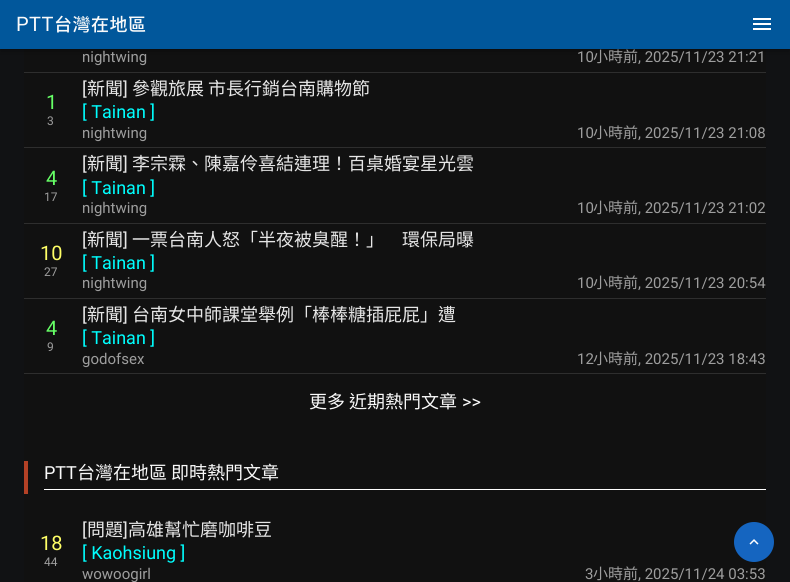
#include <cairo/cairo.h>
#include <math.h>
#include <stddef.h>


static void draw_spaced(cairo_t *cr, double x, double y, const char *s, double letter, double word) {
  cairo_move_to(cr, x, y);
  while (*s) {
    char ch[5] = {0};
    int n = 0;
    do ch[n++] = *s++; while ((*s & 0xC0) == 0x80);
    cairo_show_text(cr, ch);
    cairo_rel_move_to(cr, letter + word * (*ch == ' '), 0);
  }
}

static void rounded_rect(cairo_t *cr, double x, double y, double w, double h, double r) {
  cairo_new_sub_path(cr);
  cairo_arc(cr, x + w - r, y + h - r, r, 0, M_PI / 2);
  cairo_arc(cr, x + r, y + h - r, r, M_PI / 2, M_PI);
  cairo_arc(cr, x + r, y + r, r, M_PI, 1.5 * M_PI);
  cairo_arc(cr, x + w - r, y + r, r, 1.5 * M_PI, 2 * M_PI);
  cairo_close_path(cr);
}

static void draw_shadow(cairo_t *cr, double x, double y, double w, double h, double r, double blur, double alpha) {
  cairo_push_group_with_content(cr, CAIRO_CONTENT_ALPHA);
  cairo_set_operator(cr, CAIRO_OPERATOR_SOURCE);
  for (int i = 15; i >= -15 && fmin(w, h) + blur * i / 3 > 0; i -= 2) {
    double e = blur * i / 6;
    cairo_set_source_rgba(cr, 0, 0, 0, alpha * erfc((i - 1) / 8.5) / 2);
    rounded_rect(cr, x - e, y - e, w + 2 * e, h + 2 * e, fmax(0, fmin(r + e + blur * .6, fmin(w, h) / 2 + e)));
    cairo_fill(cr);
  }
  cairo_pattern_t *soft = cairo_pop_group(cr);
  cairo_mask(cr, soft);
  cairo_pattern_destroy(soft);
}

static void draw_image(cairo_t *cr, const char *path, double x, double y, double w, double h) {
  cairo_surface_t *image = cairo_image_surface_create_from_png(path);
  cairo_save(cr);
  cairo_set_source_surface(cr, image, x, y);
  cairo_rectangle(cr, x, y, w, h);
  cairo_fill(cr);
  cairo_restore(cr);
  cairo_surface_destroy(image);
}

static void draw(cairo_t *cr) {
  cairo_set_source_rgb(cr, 17 / 255.0, 18 / 255.0, 20 / 255.0);
  cairo_paint(cr);
  cairo_set_source_rgb(cr, 17 / 255.0, 17 / 255.0, 17 / 255.0);
  cairo_rectangle(cr, 24, 49, 742, 533);
  cairo_fill(cr);
  cairo_set_source_rgb(cr, 0, 0, 0);
  draw_shadow(cr, 0, 4, 790, 49, 0, 2.5, 0.14);
  draw_shadow(cr, 1, 3, 788, 47, 0, 2, 0.2);
  cairo_set_source_rgb(cr, 1 / 255.0, 87 / 255.0, 155 / 255.0);
  cairo_rectangle(cr, 0, 0, 790, 49);
  cairo_fill(cr);
  draw_image(cr, "images/1.png", 753, 18, 18, 12);
  cairo_set_source_rgb(cr, 46 / 255.0, 46 / 255.0, 46 / 255.0);
  cairo_rectangle(cr, 24, 72, 742, 1);
  cairo_fill(cr);
  cairo_rectangle(cr, 24, 147, 742, 1);
  cairo_fill(cr);
  cairo_rectangle(cr, 24, 223, 742, 1);
  cairo_fill(cr);
  cairo_rectangle(cr, 24, 298, 742, 1);
  cairo_fill(cr);
  cairo_rectangle(cr, 24, 373, 742, 1);
  cairo_fill(cr);
  cairo_set_source_rgb(cr, 179 / 255.0, 65 / 255.0, 38 / 255.0);
  cairo_rectangle(cr, 24, 461, 4, 33);
  cairo_fill(cr);
  cairo_set_source_rgb(cr, 1, 1, 1);
  cairo_rectangle(cr, 44, 489, 722, 1);
  cairo_fill(cr);
  cairo_set_source_rgb(cr, 21 / 255.0, 101 / 255.0, 192 / 255.0);
  cairo_arc(cr, 754, 542, 20, 0, 2 * M_PI);
  cairo_fill(cr);
  draw_image(cr, "images/2.png", 749, 539, 10, 6);
  cairo_select_font_face(cr, "Roboto", CAIRO_FONT_SLANT_NORMAL, CAIRO_FONT_WEIGHT_NORMAL);
  cairo_set_font_size(cr, 20);
  cairo_set_source_rgb(cr, 250 / 255.0, 250 / 255.0, 250 / 255.0);
  draw_spaced(cr, 16, 31, "PTT", 0.5, 0);
  cairo_select_font_face(cr, "Noto Sans CJK TC Medium", CAIRO_FONT_SLANT_NORMAL, CAIRO_FONT_WEIGHT_NORMAL);
  cairo_set_font_size(cr, 18);
  draw_spaced(cr, 54, 31, "台灣在地區", 0.5, 0);
  cairo_select_font_face(cr, "Roboto", CAIRO_FONT_SLANT_NORMAL, CAIRO_FONT_WEIGHT_NORMAL);
  cairo_set_font_size(cr, 15);
  cairo_set_source_rgb(cr, 158 / 255.0, 158 / 255.0, 158 / 255.0);
  cairo_move_to(cr, 82, 62);
  cairo_show_text(cr, "nightwing");
  cairo_move_to(cr, 577, 62);
  cairo_show_text(cr, "10");
  cairo_select_font_face(cr, "Noto Sans CJK TC", CAIRO_FONT_SLANT_NORMAL, CAIRO_FONT_WEIGHT_NORMAL);
  cairo_move_to(cr, 593, 62);
  cairo_show_text(cr, "小時前");
  cairo_select_font_face(cr, "Roboto", CAIRO_FONT_SLANT_NORMAL, CAIRO_FONT_WEIGHT_NORMAL);
  cairo_move_to(cr, 638, 62);
  cairo_show_text(cr, ", 2025/11/23 21:21");
  cairo_set_font_size(cr, 20);
  cairo_set_source_rgb(cr, 102 / 255.0, 1, 102 / 255.0);
  cairo_move_to(cr, 46, 109);
  cairo_show_text(cr, "1");
  cairo_set_font_size(cr, 12);
  cairo_set_source_rgb(cr, 158 / 255.0, 158 / 255.0, 158 / 255.0);
  cairo_move_to(cr, 47, 125);
  cairo_show_text(cr, "3");
  cairo_set_font_size(cr, 18);
  cairo_set_source_rgb(cr, 230 / 255.0, 230 / 255.0, 230 / 255.0);
  cairo_move_to(cr, 82, 95);
  cairo_show_text(cr, "[");
  cairo_select_font_face(cr, "Noto Sans CJK TC", CAIRO_FONT_SLANT_NORMAL, CAIRO_FONT_WEIGHT_NORMAL);
  cairo_move_to(cr, 87, 95);
  cairo_show_text(cr, "新聞");
  cairo_select_font_face(cr, "Roboto", CAIRO_FONT_SLANT_NORMAL, CAIRO_FONT_WEIGHT_NORMAL);
  cairo_move_to(cr, 123, 95);
  cairo_show_text(cr, "]");
  cairo_select_font_face(cr, "Noto Sans CJK TC", CAIRO_FONT_SLANT_NORMAL, CAIRO_FONT_WEIGHT_NORMAL);
  cairo_move_to(cr, 132, 95);
  cairo_show_text(cr, "參觀旅展 市長行銷台南購物節");
  cairo_select_font_face(cr, "Roboto", CAIRO_FONT_SLANT_NORMAL, CAIRO_FONT_WEIGHT_NORMAL);
  cairo_set_source_rgb(cr, 0, 1, 1);
  cairo_move_to(cr, 82, 118);
  cairo_show_text(cr, "[ Tainan ]");
  cairo_set_font_size(cr, 15);
  cairo_set_source_rgb(cr, 158 / 255.0, 158 / 255.0, 158 / 255.0);
  cairo_move_to(cr, 82, 138);
  cairo_show_text(cr, "nightwing");
  cairo_move_to(cr, 577, 138);
  cairo_show_text(cr, "10");
  cairo_select_font_face(cr, "Noto Sans CJK TC", CAIRO_FONT_SLANT_NORMAL, CAIRO_FONT_WEIGHT_NORMAL);
  cairo_move_to(cr, 593, 138);
  cairo_show_text(cr, "小時前");
  cairo_select_font_face(cr, "Roboto", CAIRO_FONT_SLANT_NORMAL, CAIRO_FONT_WEIGHT_NORMAL);
  cairo_move_to(cr, 638, 138);
  cairo_show_text(cr, ", 2025/11/23 21:08");
  cairo_set_font_size(cr, 20);
  cairo_set_source_rgb(cr, 102 / 255.0, 1, 102 / 255.0);
  cairo_move_to(cr, 46, 185);
  cairo_show_text(cr, "4");
  cairo_set_font_size(cr, 12);
  cairo_set_source_rgb(cr, 158 / 255.0, 158 / 255.0, 158 / 255.0);
  cairo_move_to(cr, 44, 201);
  cairo_show_text(cr, "17");
  cairo_set_font_size(cr, 18);
  cairo_set_source_rgb(cr, 230 / 255.0, 230 / 255.0, 230 / 255.0);
  cairo_move_to(cr, 82, 170);
  cairo_show_text(cr, "[");
  cairo_select_font_face(cr, "Noto Sans CJK TC", CAIRO_FONT_SLANT_NORMAL, CAIRO_FONT_WEIGHT_NORMAL);
  cairo_move_to(cr, 87, 170);
  cairo_show_text(cr, "新聞");
  cairo_select_font_face(cr, "Roboto", CAIRO_FONT_SLANT_NORMAL, CAIRO_FONT_WEIGHT_NORMAL);
  cairo_move_to(cr, 123, 170);
  cairo_show_text(cr, "]");
  cairo_select_font_face(cr, "Noto Sans CJK TC", CAIRO_FONT_SLANT_NORMAL, CAIRO_FONT_WEIGHT_NORMAL);
  cairo_move_to(cr, 132, 170);
  cairo_show_text(cr, "李宗霖、陳嘉伶喜結連理！百桌婚宴星光雲");
  cairo_select_font_face(cr, "Roboto", CAIRO_FONT_SLANT_NORMAL, CAIRO_FONT_WEIGHT_NORMAL);
  cairo_set_source_rgb(cr, 0, 1, 1);
  cairo_move_to(cr, 82, 194);
  cairo_show_text(cr, "[ Tainan ]");
  cairo_set_font_size(cr, 15);
  cairo_set_source_rgb(cr, 158 / 255.0, 158 / 255.0, 158 / 255.0);
  cairo_move_to(cr, 82, 213);
  cairo_show_text(cr, "nightwing");
  cairo_move_to(cr, 577, 213);
  cairo_show_text(cr, "10");
  cairo_select_font_face(cr, "Noto Sans CJK TC", CAIRO_FONT_SLANT_NORMAL, CAIRO_FONT_WEIGHT_NORMAL);
  cairo_move_to(cr, 593, 213);
  cairo_show_text(cr, "小時前");
  cairo_select_font_face(cr, "Roboto", CAIRO_FONT_SLANT_NORMAL, CAIRO_FONT_WEIGHT_NORMAL);
  cairo_move_to(cr, 638, 213);
  cairo_show_text(cr, ", 2025/11/23 21:02");
  cairo_set_font_size(cr, 20);
  cairo_set_source_rgb(cr, 1, 1, 102 / 255.0);
  cairo_move_to(cr, 40, 260);
  cairo_show_text(cr, "10");
  cairo_set_font_size(cr, 12);
  cairo_set_source_rgb(cr, 158 / 255.0, 158 / 255.0, 158 / 255.0);
  cairo_move_to(cr, 44, 276);
  cairo_show_text(cr, "27");
  cairo_set_font_size(cr, 18);
  cairo_set_source_rgb(cr, 230 / 255.0, 230 / 255.0, 230 / 255.0);
  cairo_move_to(cr, 82, 246);
  cairo_show_text(cr, "[");
  cairo_select_font_face(cr, "Noto Sans CJK TC", CAIRO_FONT_SLANT_NORMAL, CAIRO_FONT_WEIGHT_NORMAL);
  cairo_move_to(cr, 87, 246);
  cairo_show_text(cr, "新聞");
  cairo_select_font_face(cr, "Roboto", CAIRO_FONT_SLANT_NORMAL, CAIRO_FONT_WEIGHT_NORMAL);
  cairo_move_to(cr, 123, 246);
  cairo_show_text(cr, "]");
  cairo_select_font_face(cr, "Noto Sans CJK TC", CAIRO_FONT_SLANT_NORMAL, CAIRO_FONT_WEIGHT_NORMAL);
  cairo_move_to(cr, 132, 246);
  cairo_show_text(cr, "一票台南人怒「半夜被臭醒！」　環保局曝");
  cairo_select_font_face(cr, "Roboto", CAIRO_FONT_SLANT_NORMAL, CAIRO_FONT_WEIGHT_NORMAL);
  cairo_set_source_rgb(cr, 0, 1, 1);
  cairo_move_to(cr, 82, 269);
  cairo_show_text(cr, "[ Tainan ]");
  cairo_set_font_size(cr, 15);
  cairo_set_source_rgb(cr, 158 / 255.0, 158 / 255.0, 158 / 255.0);
  cairo_move_to(cr, 82, 288);
  cairo_show_text(cr, "nightwing");
  cairo_move_to(cr, 577, 288);
  cairo_show_text(cr, "10");
  cairo_select_font_face(cr, "Noto Sans CJK TC", CAIRO_FONT_SLANT_NORMAL, CAIRO_FONT_WEIGHT_NORMAL);
  cairo_move_to(cr, 593, 288);
  cairo_show_text(cr, "小時前");
  cairo_select_font_face(cr, "Roboto", CAIRO_FONT_SLANT_NORMAL, CAIRO_FONT_WEIGHT_NORMAL);
  cairo_move_to(cr, 638, 288);
  cairo_show_text(cr, ", 2025/11/23 20:54");
  cairo_set_font_size(cr, 20);
  cairo_set_source_rgb(cr, 102 / 255.0, 1, 102 / 255.0);
  cairo_move_to(cr, 46, 335);
  cairo_show_text(cr, "4");
  cairo_set_font_size(cr, 12);
  cairo_set_source_rgb(cr, 158 / 255.0, 158 / 255.0, 158 / 255.0);
  cairo_move_to(cr, 47, 351);
  cairo_show_text(cr, "9");
  cairo_set_font_size(cr, 18);
  cairo_set_source_rgb(cr, 230 / 255.0, 230 / 255.0, 230 / 255.0);
  cairo_move_to(cr, 82, 321);
  cairo_show_text(cr, "[");
  cairo_select_font_face(cr, "Noto Sans CJK TC", CAIRO_FONT_SLANT_NORMAL, CAIRO_FONT_WEIGHT_NORMAL);
  cairo_move_to(cr, 87, 321);
  cairo_show_text(cr, "新聞");
  cairo_select_font_face(cr, "Roboto", CAIRO_FONT_SLANT_NORMAL, CAIRO_FONT_WEIGHT_NORMAL);
  cairo_move_to(cr, 123, 321);
  cairo_show_text(cr, "]");
  cairo_select_font_face(cr, "Noto Sans CJK TC", CAIRO_FONT_SLANT_NORMAL, CAIRO_FONT_WEIGHT_NORMAL);
  cairo_move_to(cr, 132, 321);
  cairo_show_text(cr, "台南女中師課堂舉例「棒棒糖插屁屁」遭");
  cairo_select_font_face(cr, "Roboto", CAIRO_FONT_SLANT_NORMAL, CAIRO_FONT_WEIGHT_NORMAL);
  cairo_set_source_rgb(cr, 0, 1, 1);
  cairo_move_to(cr, 82, 344);
  cairo_show_text(cr, "[ Tainan ]");
  cairo_set_font_size(cr, 15);
  cairo_set_source_rgb(cr, 158 / 255.0, 158 / 255.0, 158 / 255.0);
  cairo_move_to(cr, 82, 364);
  cairo_show_text(cr, "godofsex");
  cairo_move_to(cr, 577, 364);
  cairo_show_text(cr, "12");
  cairo_select_font_face(cr, "Noto Sans CJK TC", CAIRO_FONT_SLANT_NORMAL, CAIRO_FONT_WEIGHT_NORMAL);
  cairo_move_to(cr, 593, 364);
  cairo_show_text(cr, "小時前");
  cairo_select_font_face(cr, "Roboto", CAIRO_FONT_SLANT_NORMAL, CAIRO_FONT_WEIGHT_NORMAL);
  cairo_move_to(cr, 638, 364);
  cairo_show_text(cr, ", 2025/11/23 18:43");
  cairo_select_font_face(cr, "Noto Sans CJK TC", CAIRO_FONT_SLANT_NORMAL, CAIRO_FONT_WEIGHT_NORMAL);
  cairo_set_font_size(cr, 18);
  cairo_set_source_rgb(cr, 250 / 255.0, 250 / 255.0, 250 / 255.0);
  cairo_move_to(cr, 309, 408);
  cairo_show_text(cr, "更多 近期熱門文章");
  cairo_select_font_face(cr, "Roboto", CAIRO_FONT_SLANT_NORMAL, CAIRO_FONT_WEIGHT_NORMAL);
  cairo_move_to(cr, 462, 408);
  cairo_show_text(cr, ">>");
  cairo_move_to(cr, 44, 479);
  cairo_show_text(cr, "PTT");
  cairo_select_font_face(cr, "Noto Sans CJK TC", CAIRO_FONT_SLANT_NORMAL, CAIRO_FONT_WEIGHT_NORMAL);
  cairo_move_to(cr, 77, 479);
  cairo_show_text(cr, "台灣在地區 即時熱門文章");
  cairo_select_font_face(cr, "Roboto", CAIRO_FONT_SLANT_NORMAL, CAIRO_FONT_WEIGHT_NORMAL);
  cairo_set_font_size(cr, 20);
  cairo_set_source_rgb(cr, 1, 1, 102 / 255.0);
  cairo_move_to(cr, 40, 550);
  cairo_show_text(cr, "18");
  cairo_set_font_size(cr, 12);
  cairo_set_source_rgb(cr, 158 / 255.0, 158 / 255.0, 158 / 255.0);
  cairo_move_to(cr, 44, 566);
  cairo_show_text(cr, "44");
  cairo_set_font_size(cr, 18);
  cairo_set_source_rgb(cr, 230 / 255.0, 230 / 255.0, 230 / 255.0);
  cairo_move_to(cr, 82, 536);
  cairo_show_text(cr, "[");
  cairo_select_font_face(cr, "Noto Sans CJK TC", CAIRO_FONT_SLANT_NORMAL, CAIRO_FONT_WEIGHT_NORMAL);
  cairo_move_to(cr, 87, 536);
  cairo_show_text(cr, "問題");
  cairo_select_font_face(cr, "Roboto", CAIRO_FONT_SLANT_NORMAL, CAIRO_FONT_WEIGHT_NORMAL);
  cairo_move_to(cr, 123, 536);
  cairo_show_text(cr, "]");
  cairo_select_font_face(cr, "Noto Sans CJK TC", CAIRO_FONT_SLANT_NORMAL, CAIRO_FONT_WEIGHT_NORMAL);
  cairo_move_to(cr, 128, 536);
  cairo_show_text(cr, "高雄幫忙磨咖啡豆");
  cairo_select_font_face(cr, "Roboto", CAIRO_FONT_SLANT_NORMAL, CAIRO_FONT_WEIGHT_NORMAL);
  cairo_set_source_rgb(cr, 0, 1, 1);
  cairo_move_to(cr, 82, 559);
  cairo_show_text(cr, "[ Kaohsiung ]");
  cairo_set_font_size(cr, 15);
  cairo_set_source_rgb(cr, 158 / 255.0, 158 / 255.0, 158 / 255.0);
  cairo_move_to(cr, 82, 579);
  cairo_show_text(cr, "wowoogirl");
  cairo_move_to(cr, 585, 579);
  cairo_show_text(cr, "3");
  cairo_select_font_face(cr, "Noto Sans CJK TC", CAIRO_FONT_SLANT_NORMAL, CAIRO_FONT_WEIGHT_NORMAL);
  cairo_move_to(cr, 593, 579);
  cairo_show_text(cr, "小時前");
  cairo_select_font_face(cr, "Roboto", CAIRO_FONT_SLANT_NORMAL, CAIRO_FONT_WEIGHT_NORMAL);
  cairo_move_to(cr, 638, 579);
  cairo_show_text(cr, ", 2025/11/24 03:53");
}

int main(void) {
  cairo_surface_t *surface = cairo_image_surface_create(CAIRO_FORMAT_RGB24, 790, 582);
  cairo_t *cr = cairo_create(surface);
  cairo_font_options_t *options = cairo_font_options_create();
  cairo_font_options_set_hint_metrics(options, CAIRO_HINT_METRICS_OFF);
  cairo_font_options_set_hint_style(options, CAIRO_HINT_STYLE_NONE);
  cairo_set_font_options(cr, options);
  cairo_set_miter_limit(cr, 4);
  draw(cr);
  cairo_surface_write_to_png(surface, "out.png");
  cairo_font_options_destroy(options);
  cairo_destroy(cr);
  cairo_surface_destroy(surface);
  return 0;
}
